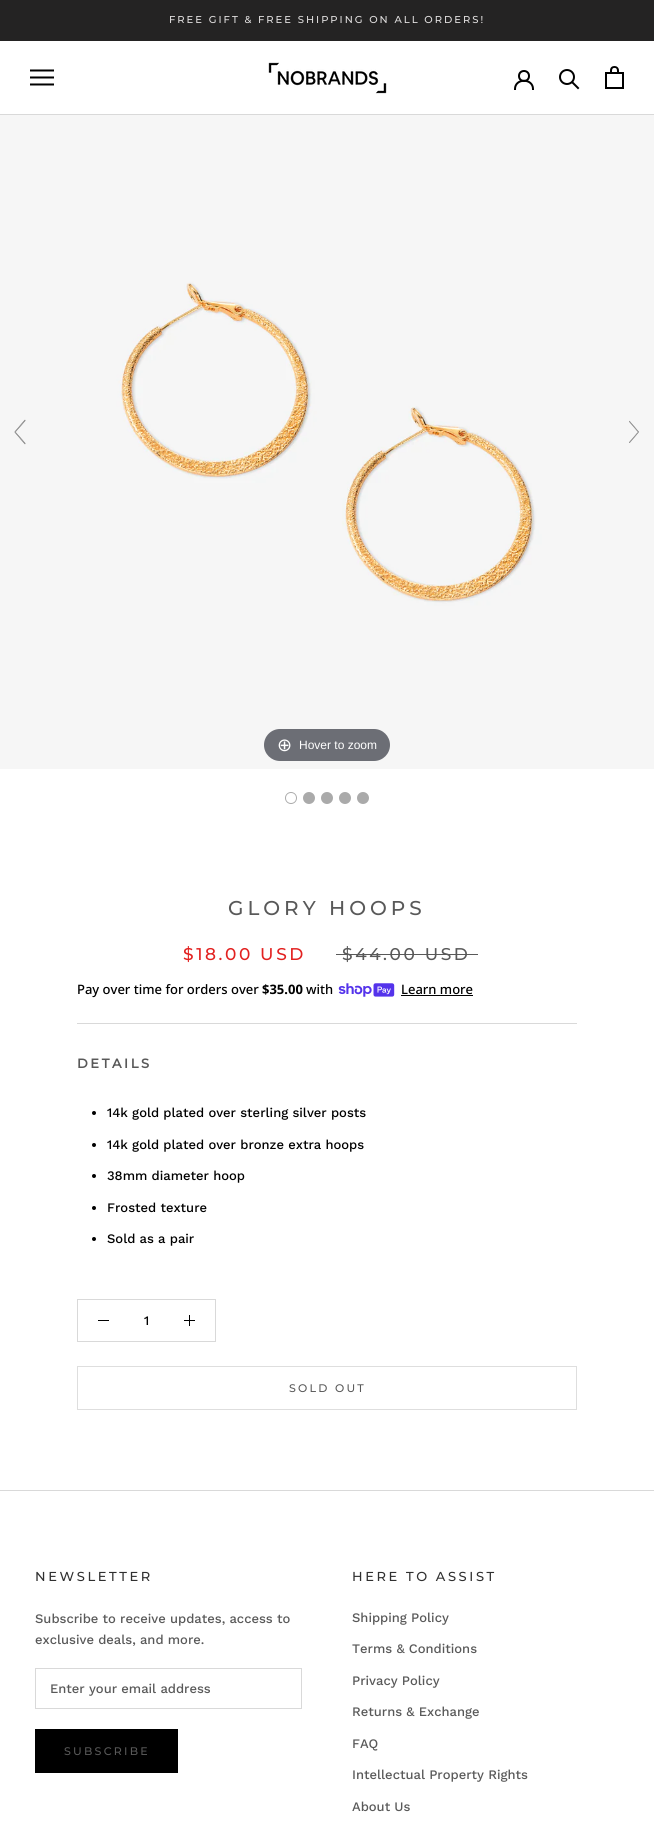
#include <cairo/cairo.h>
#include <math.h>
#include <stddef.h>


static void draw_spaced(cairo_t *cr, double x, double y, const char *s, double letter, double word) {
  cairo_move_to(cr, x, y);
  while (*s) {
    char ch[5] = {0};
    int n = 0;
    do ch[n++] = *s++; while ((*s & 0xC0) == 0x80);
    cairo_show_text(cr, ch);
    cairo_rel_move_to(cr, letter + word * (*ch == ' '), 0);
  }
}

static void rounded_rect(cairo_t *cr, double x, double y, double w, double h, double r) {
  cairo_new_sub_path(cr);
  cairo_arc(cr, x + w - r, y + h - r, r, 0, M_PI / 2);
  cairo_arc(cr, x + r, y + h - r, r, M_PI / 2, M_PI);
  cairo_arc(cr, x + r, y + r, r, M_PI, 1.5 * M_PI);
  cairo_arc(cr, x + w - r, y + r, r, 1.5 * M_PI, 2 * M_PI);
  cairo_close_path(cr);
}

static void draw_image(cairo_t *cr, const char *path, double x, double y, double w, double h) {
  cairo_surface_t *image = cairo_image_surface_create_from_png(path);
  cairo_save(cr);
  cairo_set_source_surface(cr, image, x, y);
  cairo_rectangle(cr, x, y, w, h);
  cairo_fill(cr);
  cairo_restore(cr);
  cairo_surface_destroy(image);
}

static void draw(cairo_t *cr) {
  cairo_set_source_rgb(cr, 1, 1, 1);
  cairo_paint(cr);
  cairo_set_source_rgb(cr, 36 / 255.0, 35 / 255.0, 35 / 255.0);
  cairo_rectangle(cr, 0, 0, 654, 41);
  cairo_fill(cr);
  cairo_set_source_rgb(cr, 217 / 255.0, 217 / 255.0, 217 / 255.0);
  cairo_rectangle(cr, 0, 114, 654, 1);
  cairo_fill(cr);
  draw_image(cr, "images/1.png", 30, 69, 24, 17);
  draw_image(cr, "images/2.png", 268, 62, 119, 32);
  cairo_new_path(cr);
  cairo_move_to(cr, 515, 89);
  cairo_curve_to(cr, 515, 78, 533, 78, 533, 89);
  cairo_set_source_rgb(cr, 0, 0, 0);
  cairo_set_line_cap(cr, CAIRO_LINE_CAP_SQUARE);
  cairo_stroke(cr);
  cairo_arc(cr, 524, 76, 5, 0, 2 * M_PI);
  cairo_set_line_cap(cr, CAIRO_LINE_CAP_BUTT);
  cairo_stroke(cr);
  cairo_new_path(cr);
  cairo_move_to(cr, 578, 88);
  cairo_line_to(cr, 572.5, 82.5);
  cairo_set_line_cap(cr, CAIRO_LINE_CAP_SQUARE);
  cairo_stroke(cr);
  cairo_arc(cr, 567, 77, 7, 0, 2 * M_PI);
  cairo_set_line_cap(cr, CAIRO_LINE_CAP_BUTT);
  cairo_stroke(cr);
  draw_image(cr, "images/3.png", 605, 66, 19, 23);
  draw_image(cr, "images/6.png", 0, 115, 654, 654);
  draw_image(cr, "images/4.png", 14, 419, 12, 26);
  draw_image(cr, "images/5.png", 629, 420, 10, 23);
  cairo_set_source_rgb(cr, 108 / 255.0, 110 / 255.0, 117 / 255.0);
  rounded_rect(cr, 264, 729, 126, 32, 16);
  cairo_fill(cr);
  cairo_set_source_rgb(cr, 170 / 255.0, 170 / 255.0, 170 / 255.0);
  cairo_arc(cr, 291, 798, 6, 0, 2 * M_PI);
  cairo_fill(cr);
  cairo_set_source_rgb(cr, 1, 1, 1);
  cairo_arc(cr, 291, 798, 5, 0, 2 * M_PI);
  cairo_fill(cr);
  cairo_set_source_rgb(cr, 170 / 255.0, 170 / 255.0, 170 / 255.0);
  cairo_arc(cr, 309, 798, 6, 0, 2 * M_PI);
  cairo_fill(cr);
  cairo_arc(cr, 327, 798, 6, 0, 2 * M_PI);
  cairo_fill(cr);
  cairo_arc(cr, 345, 798, 6, 0, 2 * M_PI);
  cairo_fill(cr);
  cairo_arc(cr, 363, 798, 6, 0, 2 * M_PI);
  cairo_fill(cr);
  cairo_set_source_rgb(cr, 217 / 255.0, 217 / 255.0, 217 / 255.0);
  cairo_rectangle(cr, 77, 1023, 500, 1);
  cairo_fill(cr);
  cairo_set_source_rgb(cr, 89 / 255.0, 89 / 255.0, 89 / 255.0);
  cairo_rectangle(cr, 336, 954, 142, 1);
  cairo_fill(cr);
  draw_image(cr, "images/7.png", 338, 983, 57, 14);
  cairo_set_source_rgb(cr, 0, 0, 0);
  cairo_rectangle(cr, 401, 995, 72, 1);
  cairo_fill(cr);
  cairo_arc(cr, 94, 1113, 2, 0, 2 * M_PI);
  cairo_fill(cr);
  cairo_arc(cr, 94, 1145, 2, 0, 2 * M_PI);
  cairo_fill(cr);
  cairo_arc(cr, 94, 1176, 2, 0, 2 * M_PI);
  cairo_fill(cr);
  cairo_arc(cr, 94, 1208, 2, 0, 2 * M_PI);
  cairo_fill(cr);
  cairo_arc(cr, 94, 1239, 2, 0, 2 * M_PI);
  cairo_fill(cr);
  cairo_rectangle(cr, 77.5, 1299.5, 138, 42);
  cairo_set_source_rgb(cr, 217 / 255.0, 217 / 255.0, 217 / 255.0);
  cairo_set_line_width(cr, 1);
  cairo_stroke(cr);
  cairo_set_source_rgb(cr, 0, 0, 0);
  cairo_rectangle(cr, 98, 1320, 11, 1);
  cairo_fill(cr);
  cairo_rectangle(cr, 189, 1315, 1, 11);
  cairo_fill(cr);
  cairo_rectangle(cr, 184, 1320, 11, 1);
  cairo_fill(cr);
  cairo_rectangle(cr, 77.5, 1366.5, 499, 43);
  cairo_set_source_rgb(cr, 222 / 255.0, 222 / 255.0, 222 / 255.0);
  cairo_stroke(cr);
  cairo_set_source_rgb(cr, 217 / 255.0, 217 / 255.0, 217 / 255.0);
  cairo_rectangle(cr, 0, 1490, 654, 1);
  cairo_fill(cr);
  cairo_rectangle(cr, 35.5, 1668.5, 266, 40);
  cairo_stroke(cr);
  cairo_rectangle(cr, 35.5, 1729.5, 142, 43);
  cairo_set_source_rgb(cr, 0, 0, 0);
  cairo_stroke(cr);
  cairo_rectangle(cr, 36, 1730, 141, 42);
  cairo_fill(cr);
  cairo_select_font_face(cr, "Montserrat Medium", CAIRO_FONT_SLANT_NORMAL, CAIRO_FONT_WEIGHT_NORMAL);
  cairo_set_font_size(cr, 10);
  cairo_set_source_rgb(cr, 224 / 255.0, 222 / 255.0, 222 / 255.0);
  draw_spaced(cr, 169, 23, "FREE GIFT & FREE SHIPPING ON ALL ORDERS!", 2, 0);
  cairo_select_font_face(cr, "DejaVu Sans", CAIRO_FONT_SLANT_NORMAL, CAIRO_FONT_WEIGHT_NORMAL);
  cairo_set_font_size(cr, 18);
  cairo_set_source_rgb(cr, 1, 1, 1);
  cairo_move_to(cr, 277, 751);
  cairo_show_text(cr, "⊕");
  cairo_select_font_face(cr, "Liberation Sans", CAIRO_FONT_SLANT_NORMAL, CAIRO_FONT_WEIGHT_NORMAL);
  cairo_set_font_size(cr, 12);
  cairo_move_to(cr, 299, 749);
  cairo_show_text(cr, "Hover to zoom");
  cairo_select_font_face(cr, "Montserrat Medium", CAIRO_FONT_SLANT_NORMAL, CAIRO_FONT_WEIGHT_NORMAL);
  cairo_set_font_size(cr, 20);
  cairo_set_source_rgb(cr, 89 / 255.0, 89 / 255.0, 89 / 255.0);
  draw_spaced(cr, 228, 915, "GLORY HOOPS", 4, 0);
  cairo_set_font_size(cr, 17);
  cairo_set_source_rgb(cr, 226 / 255.0, 33 / 255.0, 32 / 255.0);
  draw_spaced(cr, 183, 960, "$18.00 USD", 2.6, 0);
  cairo_set_source_rgb(cr, 89 / 255.0, 89 / 255.0, 89 / 255.0);
  draw_spaced(cr, 342, 960, "$44.00 USD", 2.6, 0);
  cairo_select_font_face(cr, "Noto Sans Medium", CAIRO_FONT_SLANT_NORMAL, CAIRO_FONT_WEIGHT_NORMAL);
  cairo_set_font_size(cr, 13);
  cairo_set_source_rgb(cr, 0, 0, 0);
  cairo_move_to(cr, 77, 994);
  cairo_show_text(cr, "Pay over time for orders over");
  cairo_select_font_face(cr, "Noto Sans", CAIRO_FONT_SLANT_NORMAL, CAIRO_FONT_WEIGHT_BOLD);
  cairo_move_to(cr, 262, 994);
  cairo_show_text(cr, "$35.00");
  cairo_select_font_face(cr, "Noto Sans Medium", CAIRO_FONT_SLANT_NORMAL, CAIRO_FONT_WEIGHT_NORMAL);
  cairo_move_to(cr, 306, 994);
  cairo_show_text(cr, "with");
  cairo_move_to(cr, 401, 994);
  cairo_show_text(cr, "Learn more");
  cairo_select_font_face(cr, "Montserrat", CAIRO_FONT_SLANT_NORMAL, CAIRO_FONT_WEIGHT_BOLD);
  cairo_set_source_rgb(cr, 89 / 255.0, 89 / 255.0, 89 / 255.0);
  draw_spaced(cr, 77, 1068, "DETAILS", 2.6, 0);
  cairo_select_font_face(cr, "Work Sans Medium", CAIRO_FONT_SLANT_NORMAL, CAIRO_FONT_WEIGHT_NORMAL);
  cairo_set_source_rgb(cr, 0, 0, 0);
  cairo_move_to(cr, 107, 1117);
  cairo_show_text(cr, "14k gold plated over sterling silver posts");
  cairo_move_to(cr, 107, 1149);
  cairo_show_text(cr, "14k gold plated over bronze extra hoops");
  cairo_move_to(cr, 107, 1180);
  cairo_show_text(cr, "38mm diameter hoop");
  cairo_move_to(cr, 107, 1212);
  cairo_show_text(cr, "Frosted texture");
  cairo_move_to(cr, 107, 1243);
  cairo_show_text(cr, "Sold as a pair");
  cairo_move_to(cr, 144, 1325);
  cairo_show_text(cr, "1");
  cairo_select_font_face(cr, "Montserrat Medium", CAIRO_FONT_SLANT_NORMAL, CAIRO_FONT_WEIGHT_NORMAL);
  cairo_set_font_size(cr, 11);
  cairo_set_source_rgb(cr, 89 / 255.0, 89 / 255.0, 89 / 255.0);
  draw_spaced(cr, 289, 1392, "SOLD OUT", 2.25, 0);
  cairo_set_font_size(cr, 13);
  cairo_set_source_rgb(cr, 48 / 255.0, 48 / 255.0, 48 / 255.0);
  draw_spaced(cr, 35, 1581, "NEWSLETTER", 2.6, 0);
  cairo_select_font_face(cr, "Work Sans Medium", CAIRO_FONT_SLANT_NORMAL, CAIRO_FONT_WEIGHT_NORMAL);
  cairo_set_source_rgb(cr, 89 / 255.0, 89 / 255.0, 89 / 255.0);
  cairo_move_to(cr, 35, 1623);
  cairo_show_text(cr, "Subscribe to receive updates, access to");
  cairo_move_to(cr, 35, 1644);
  cairo_show_text(cr, "exclusive deals, and more.");
  cairo_move_to(cr, 50, 1693);
  cairo_show_text(cr, "Enter your email address");
  cairo_select_font_face(cr, "Montserrat Medium", CAIRO_FONT_SLANT_NORMAL, CAIRO_FONT_WEIGHT_NORMAL);
  cairo_set_font_size(cr, 11);
  draw_spaced(cr, 64, 1755, "SUBSCRIBE", 2.25, 0);
  cairo_set_font_size(cr, 13);
  cairo_set_source_rgb(cr, 48 / 255.0, 48 / 255.0, 48 / 255.0);
  draw_spaced(cr, 352, 1581, "HERE TO ASSIST", 2.6, 0);
  cairo_select_font_face(cr, "Work Sans Medium", CAIRO_FONT_SLANT_NORMAL, CAIRO_FONT_WEIGHT_NORMAL);
  cairo_set_source_rgb(cr, 89 / 255.0, 89 / 255.0, 89 / 255.0);
  cairo_move_to(cr, 352, 1622);
  cairo_show_text(cr, "Shipping Policy");
  cairo_move_to(cr, 352, 1653);
  cairo_show_text(cr, "Terms & Conditions");
  cairo_move_to(cr, 352, 1685);
  cairo_show_text(cr, "Privacy Policy");
  cairo_move_to(cr, 352, 1716);
  cairo_show_text(cr, "Returns & Exchange");
  cairo_move_to(cr, 352, 1748);
  cairo_show_text(cr, "FAQ");
  cairo_move_to(cr, 352, 1779);
  cairo_show_text(cr, "Intellectual Property Rights");
  cairo_move_to(cr, 352, 1811);
  cairo_show_text(cr, "About Us");
}

int main(void) {
  cairo_surface_t *surface = cairo_image_surface_create(CAIRO_FORMAT_RGB24, 654, 1823);
  cairo_t *cr = cairo_create(surface);
  cairo_font_options_t *options = cairo_font_options_create();
  cairo_font_options_set_hint_metrics(options, CAIRO_HINT_METRICS_OFF);
  cairo_font_options_set_hint_style(options, CAIRO_HINT_STYLE_NONE);
  cairo_set_font_options(cr, options);
  cairo_set_miter_limit(cr, 4);
  draw(cr);
  cairo_surface_write_to_png(surface, "out.png");
  cairo_font_options_destroy(options);
  cairo_destroy(cr);
  cairo_surface_destroy(surface);
  return 0;
}
